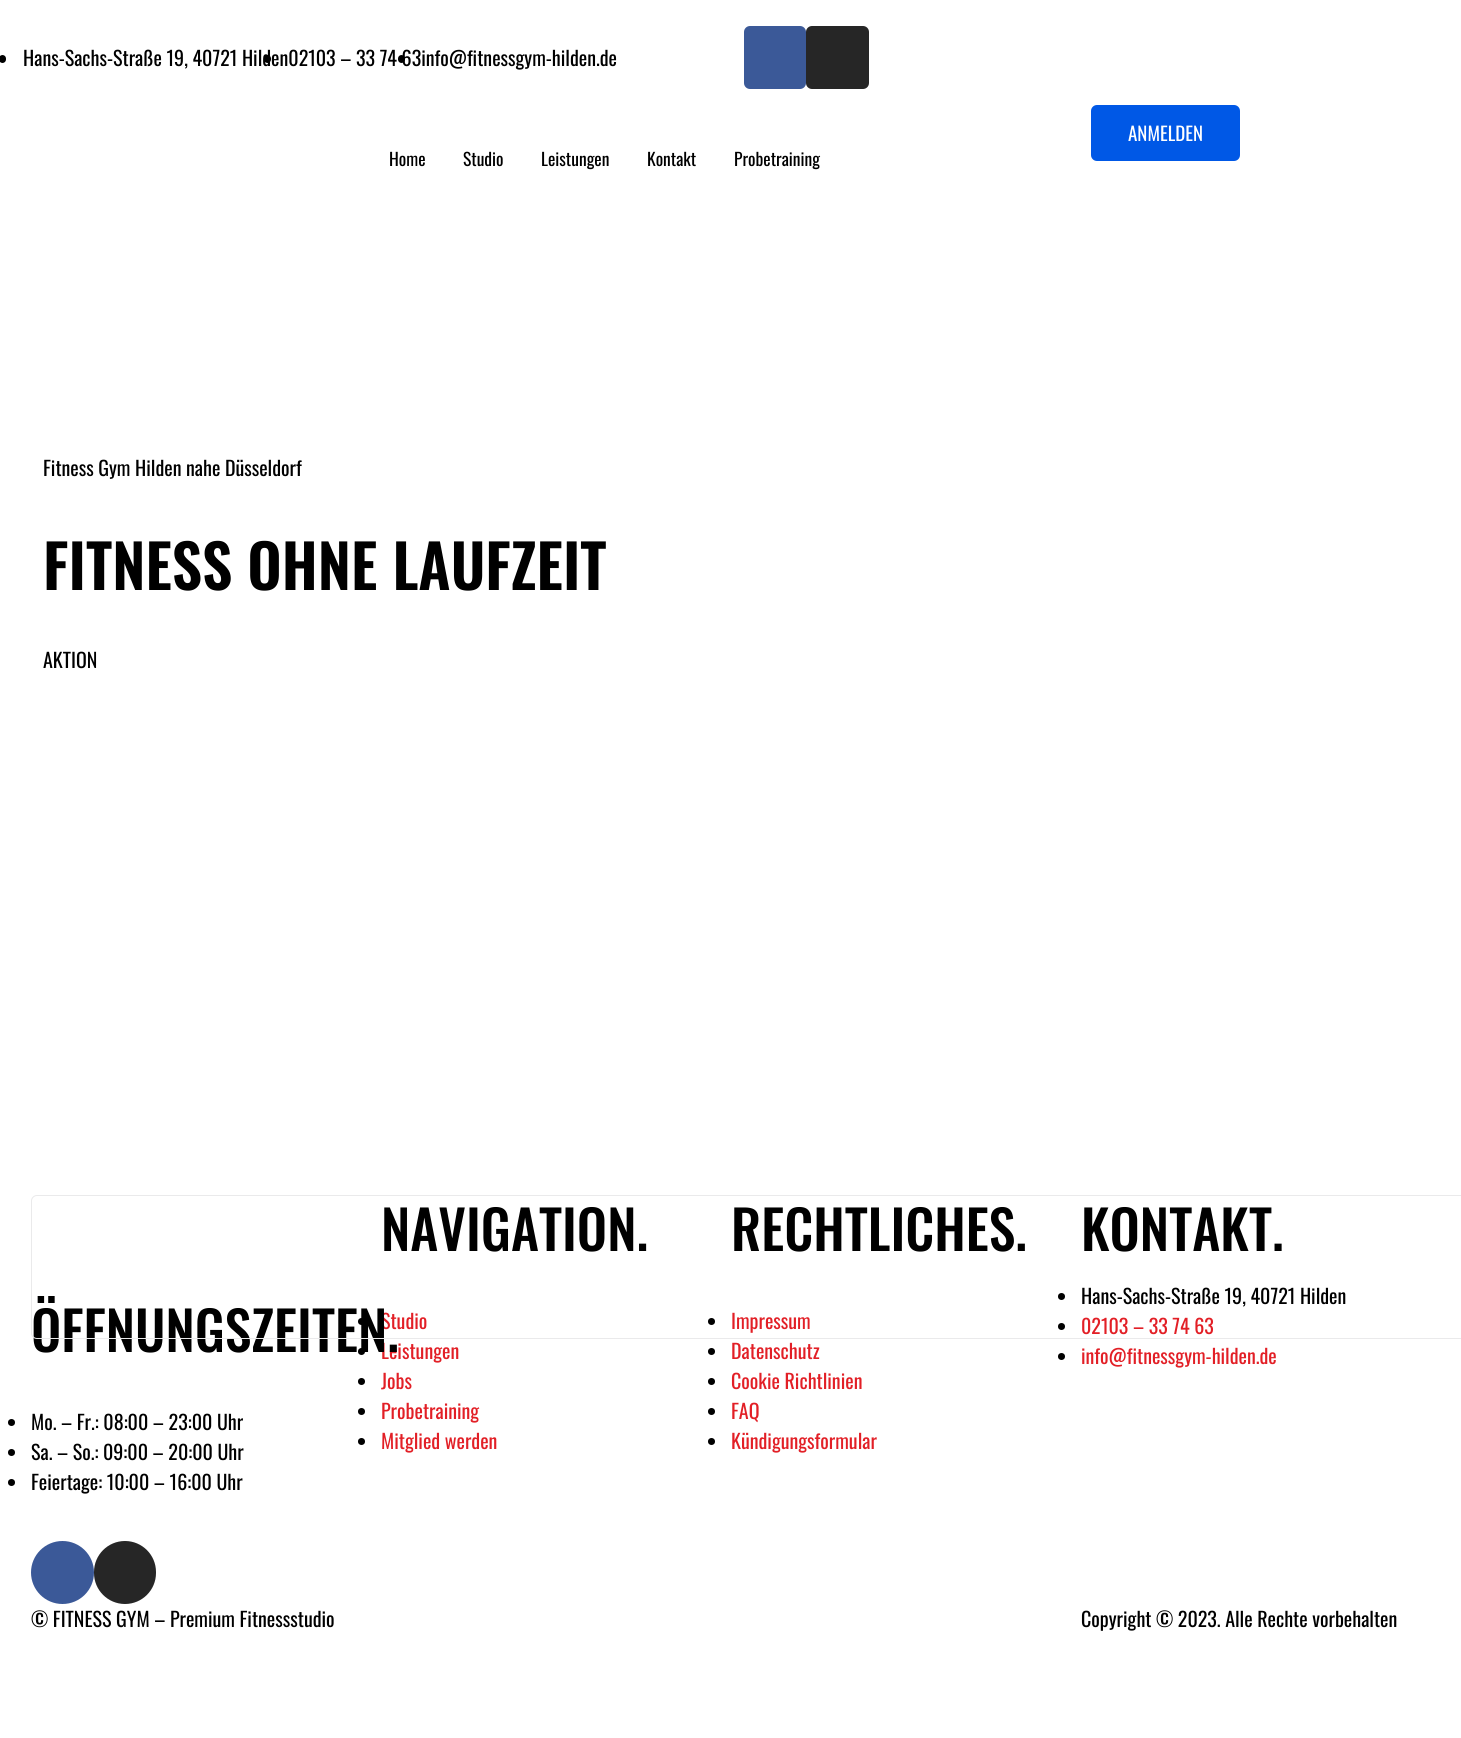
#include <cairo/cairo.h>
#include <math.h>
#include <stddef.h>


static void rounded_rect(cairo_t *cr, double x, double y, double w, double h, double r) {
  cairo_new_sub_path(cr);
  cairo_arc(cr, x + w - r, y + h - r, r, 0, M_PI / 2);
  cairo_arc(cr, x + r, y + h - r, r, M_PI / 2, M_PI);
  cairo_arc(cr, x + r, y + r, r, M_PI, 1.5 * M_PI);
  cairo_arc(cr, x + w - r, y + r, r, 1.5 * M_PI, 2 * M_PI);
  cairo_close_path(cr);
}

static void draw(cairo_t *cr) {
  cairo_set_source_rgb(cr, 1, 1, 1);
  cairo_paint(cr);
  cairo_set_source_rgb(cr, 0, 0, 0);
  rounded_rect(cr, -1, 55, 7, 8, 3.5);
  cairo_fill(cr);
  rounded_rect(cr, 264, 55, 7, 8, 3.5);
  cairo_fill(cr);
  rounded_rect(cr, 398, 55, 7, 8, 3.5);
  cairo_fill(cr);
  cairo_set_source_rgb(cr, 59 / 255.0, 89 / 255.0, 152 / 255.0);
  rounded_rect(cr, 744, 26, 62, 63, 6);
  cairo_fill(cr);
  cairo_set_source_rgb(cr, 38 / 255.0, 38 / 255.0, 38 / 255.0);
  rounded_rect(cr, 806, 26, 63, 63, 6);
  cairo_fill(cr);
  cairo_set_source_rgb(cr, 0, 88 / 255.0, 230 / 255.0);
  rounded_rect(cr, 1091, 105, 149, 56, 6);
  cairo_fill(cr);
  cairo_set_source_rgb(cr, 0, 0, 0);
  cairo_arc(cr, 11.5, 1422.5, 3.5, 0, 2 * M_PI);
  cairo_fill(cr);
  cairo_arc(cr, 11.5, 1452.5, 3.5, 0, 2 * M_PI);
  cairo_fill(cr);
  cairo_arc(cr, 11.5, 1482.5, 3.5, 0, 2 * M_PI);
  cairo_fill(cr);
  cairo_set_source_rgb(cr, 59 / 255.0, 89 / 255.0, 152 / 255.0);
  cairo_arc(cr, 62.5, 1572.5, 31.5, 0, 2 * M_PI);
  cairo_fill(cr);
  cairo_set_source_rgb(cr, 38 / 255.0, 38 / 255.0, 38 / 255.0);
  rounded_rect(cr, 94, 1541, 62, 63, 31);
  cairo_fill(cr);
  cairo_set_source_rgb(cr, 0, 0, 0);
  cairo_arc(cr, 361.5, 1321.5, 3.5, 0, 2 * M_PI);
  cairo_fill(cr);
  cairo_arc(cr, 361.5, 1351.5, 3.5, 0, 2 * M_PI);
  cairo_fill(cr);
  cairo_arc(cr, 361.5, 1381.5, 3.5, 0, 2 * M_PI);
  cairo_fill(cr);
  cairo_arc(cr, 361.5, 1411.5, 3.5, 0, 2 * M_PI);
  cairo_fill(cr);
  cairo_arc(cr, 361.5, 1441.5, 3.5, 0, 2 * M_PI);
  cairo_fill(cr);
  cairo_arc(cr, 711.5, 1321.5, 3.5, 0, 2 * M_PI);
  cairo_fill(cr);
  cairo_arc(cr, 711.5, 1351.5, 3.5, 0, 2 * M_PI);
  cairo_fill(cr);
  cairo_arc(cr, 711.5, 1381.5, 3.5, 0, 2 * M_PI);
  cairo_fill(cr);
  cairo_arc(cr, 711.5, 1411.5, 3.5, 0, 2 * M_PI);
  cairo_fill(cr);
  cairo_arc(cr, 711.5, 1441.5, 3.5, 0, 2 * M_PI);
  cairo_fill(cr);
  cairo_arc(cr, 1061.5, 1296.5, 3.5, 0, 2 * M_PI);
  cairo_fill(cr);
  cairo_arc(cr, 1061.5, 1326.5, 3.5, 0, 2 * M_PI);
  cairo_fill(cr);
  cairo_arc(cr, 1061.5, 1356.5, 3.5, 0, 2 * M_PI);
  cairo_fill(cr);
  cairo_select_font_face(cr, "Oswald", CAIRO_FONT_SLANT_NORMAL, CAIRO_FONT_WEIGHT_NORMAL);
  cairo_set_font_size(cr, 20);
  cairo_move_to(cr, 23, 66);
  cairo_show_text(cr, "Hans-Sachs-Straße 19, 40721 Hilden02103 – 33 74 63info@fitnessgym-hilden.de");
  cairo_set_font_size(cr, 19);
  cairo_set_source_rgb(cr, 1, 1, 1);
  cairo_move_to(cr, 1128, 141);
  cairo_show_text(cr, "ANMELDEN");
  cairo_set_font_size(cr, 17.5);
  cairo_set_source_rgb(cr, 0, 0, 0);
  cairo_move_to(cr, 389, 166);
  cairo_show_text(cr, "Home");
  cairo_move_to(cr, 463, 166);
  cairo_show_text(cr, "Studio");
  cairo_move_to(cr, 541, 166);
  cairo_show_text(cr, "Leistungen");
  cairo_move_to(cr, 647, 166);
  cairo_show_text(cr, "Kontakt");
  cairo_move_to(cr, 734, 166);
  cairo_show_text(cr, "Probetraining");
  cairo_set_font_size(cr, 20);
  cairo_move_to(cr, 43, 476);
  cairo_show_text(cr, "Fitness Gym Hilden nahe Düsseldorf");
  cairo_select_font_face(cr, "Oswald SemiBold", CAIRO_FONT_SLANT_NORMAL, CAIRO_FONT_WEIGHT_NORMAL);
  cairo_set_font_size(cr, 60);
  cairo_move_to(cr, 43, 590);
  cairo_show_text(cr, "FITNESS OHNE LAUFZEIT");
  cairo_select_font_face(cr, "Oswald", CAIRO_FONT_SLANT_NORMAL, CAIRO_FONT_WEIGHT_NORMAL);
  cairo_set_font_size(cr, 20);
  cairo_move_to(cr, 43, 668);
  cairo_show_text(cr, "AKTION");
  cairo_move_to(cr, 31, 1430);
  cairo_show_text(cr, "Mo. – Fr.: 08:00 – 23:00 Uhr");
  cairo_move_to(cr, 31, 1460);
  cairo_show_text(cr, "Sa. – So.: 09:00 – 20:00 Uhr");
  cairo_move_to(cr, 31, 1490);
  cairo_show_text(cr, "Feiertage: 10:00 – 16:00 Uhr");
  cairo_select_font_face(cr, "Oswald Medium", CAIRO_FONT_SLANT_NORMAL, CAIRO_FONT_WEIGHT_NORMAL);
  cairo_set_font_size(cr, 53.75);
  cairo_move_to(cr, 381, 1251);
  cairo_show_text(cr, "NAVIGATION.");
  cairo_select_font_face(cr, "Oswald", CAIRO_FONT_SLANT_NORMAL, CAIRO_FONT_WEIGHT_NORMAL);
  cairo_set_font_size(cr, 20);
  cairo_set_source_rgb(cr, 226 / 255.0, 31 / 255.0, 38 / 255.0);
  cairo_move_to(cr, 381, 1329);
  cairo_show_text(cr, "Studio");
  cairo_move_to(cr, 381, 1359);
  cairo_show_text(cr, "Leistungen");
  cairo_select_font_face(cr, "Oswald Medium", CAIRO_FONT_SLANT_NORMAL, CAIRO_FONT_WEIGHT_NORMAL);
  cairo_set_font_size(cr, 53.75);
  cairo_set_source_rgb(cr, 0, 0, 0);
  cairo_move_to(cr, 31, 1352);
  cairo_show_text(cr, "ÖFFNUNGSZEITEN.");
  rounded_rect(cr, 31.5, 1195.5, 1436, 143, 5.5);
  cairo_set_source_rgb(cr, 234 / 255.0, 234 / 255.0, 235 / 255.0);
  cairo_set_line_width(cr, 1);
  cairo_stroke(cr);
  cairo_select_font_face(cr, "Oswald", CAIRO_FONT_SLANT_NORMAL, CAIRO_FONT_WEIGHT_NORMAL);
  cairo_set_font_size(cr, 20);
  cairo_set_source_rgb(cr, 226 / 255.0, 31 / 255.0, 38 / 255.0);
  cairo_move_to(cr, 381, 1389);
  cairo_show_text(cr, "Jobs");
  cairo_move_to(cr, 381, 1419);
  cairo_show_text(cr, "Probetraining");
  cairo_move_to(cr, 381, 1449);
  cairo_show_text(cr, "Mitglied werden");
  cairo_select_font_face(cr, "Oswald Medium", CAIRO_FONT_SLANT_NORMAL, CAIRO_FONT_WEIGHT_NORMAL);
  cairo_set_font_size(cr, 53.75);
  cairo_set_source_rgb(cr, 0, 0, 0);
  cairo_move_to(cr, 731, 1251);
  cairo_show_text(cr, "RECHTLICHES.");
  cairo_select_font_face(cr, "Oswald", CAIRO_FONT_SLANT_NORMAL, CAIRO_FONT_WEIGHT_NORMAL);
  cairo_set_font_size(cr, 20);
  cairo_set_source_rgb(cr, 226 / 255.0, 31 / 255.0, 38 / 255.0);
  cairo_move_to(cr, 731, 1329);
  cairo_show_text(cr, "Impressum");
  cairo_move_to(cr, 731, 1359);
  cairo_show_text(cr, "Datenschutz");
  cairo_move_to(cr, 731, 1389);
  cairo_show_text(cr, "Cookie Richtlinien");
  cairo_move_to(cr, 731, 1419);
  cairo_show_text(cr, "FAQ");
  cairo_move_to(cr, 731, 1449);
  cairo_show_text(cr, "Kündigungsformular");
  cairo_select_font_face(cr, "Oswald Medium", CAIRO_FONT_SLANT_NORMAL, CAIRO_FONT_WEIGHT_NORMAL);
  cairo_set_font_size(cr, 53.75);
  cairo_set_source_rgb(cr, 0, 0, 0);
  cairo_move_to(cr, 1081, 1251);
  cairo_show_text(cr, "KONTAKT.");
  cairo_select_font_face(cr, "Oswald", CAIRO_FONT_SLANT_NORMAL, CAIRO_FONT_WEIGHT_NORMAL);
  cairo_set_font_size(cr, 20);
  cairo_move_to(cr, 1081, 1304);
  cairo_show_text(cr, "Hans-Sachs-Straße 19, 40721 Hilden");
  cairo_set_source_rgb(cr, 226 / 255.0, 31 / 255.0, 38 / 255.0);
  cairo_move_to(cr, 1081, 1334);
  cairo_show_text(cr, "02103 – 33 74 63");
  cairo_move_to(cr, 1081, 1364);
  cairo_show_text(cr, "info@fitnessgym-hilden.de");
  cairo_set_source_rgb(cr, 0, 0, 0);
  cairo_move_to(cr, 31, 1627);
  cairo_show_text(cr, "© FITNESS GYM – Premium Fitnessstudio");
  cairo_move_to(cr, 1081, 1627);
  cairo_show_text(cr, "Copyright © 2023. Alle Rechte vorbehalten");
}

int main(void) {
  cairo_surface_t *surface = cairo_image_surface_create(CAIRO_FORMAT_RGB24, 1461, 1738);
  cairo_t *cr = cairo_create(surface);
  cairo_font_options_t *options = cairo_font_options_create();
  cairo_font_options_set_hint_metrics(options, CAIRO_HINT_METRICS_OFF);
  cairo_font_options_set_hint_style(options, CAIRO_HINT_STYLE_NONE);
  cairo_set_font_options(cr, options);
  cairo_set_miter_limit(cr, 4);
  draw(cr);
  cairo_surface_write_to_png(surface, "out.png");
  cairo_font_options_destroy(options);
  cairo_destroy(cr);
  cairo_surface_destroy(surface);
  return 0;
}
